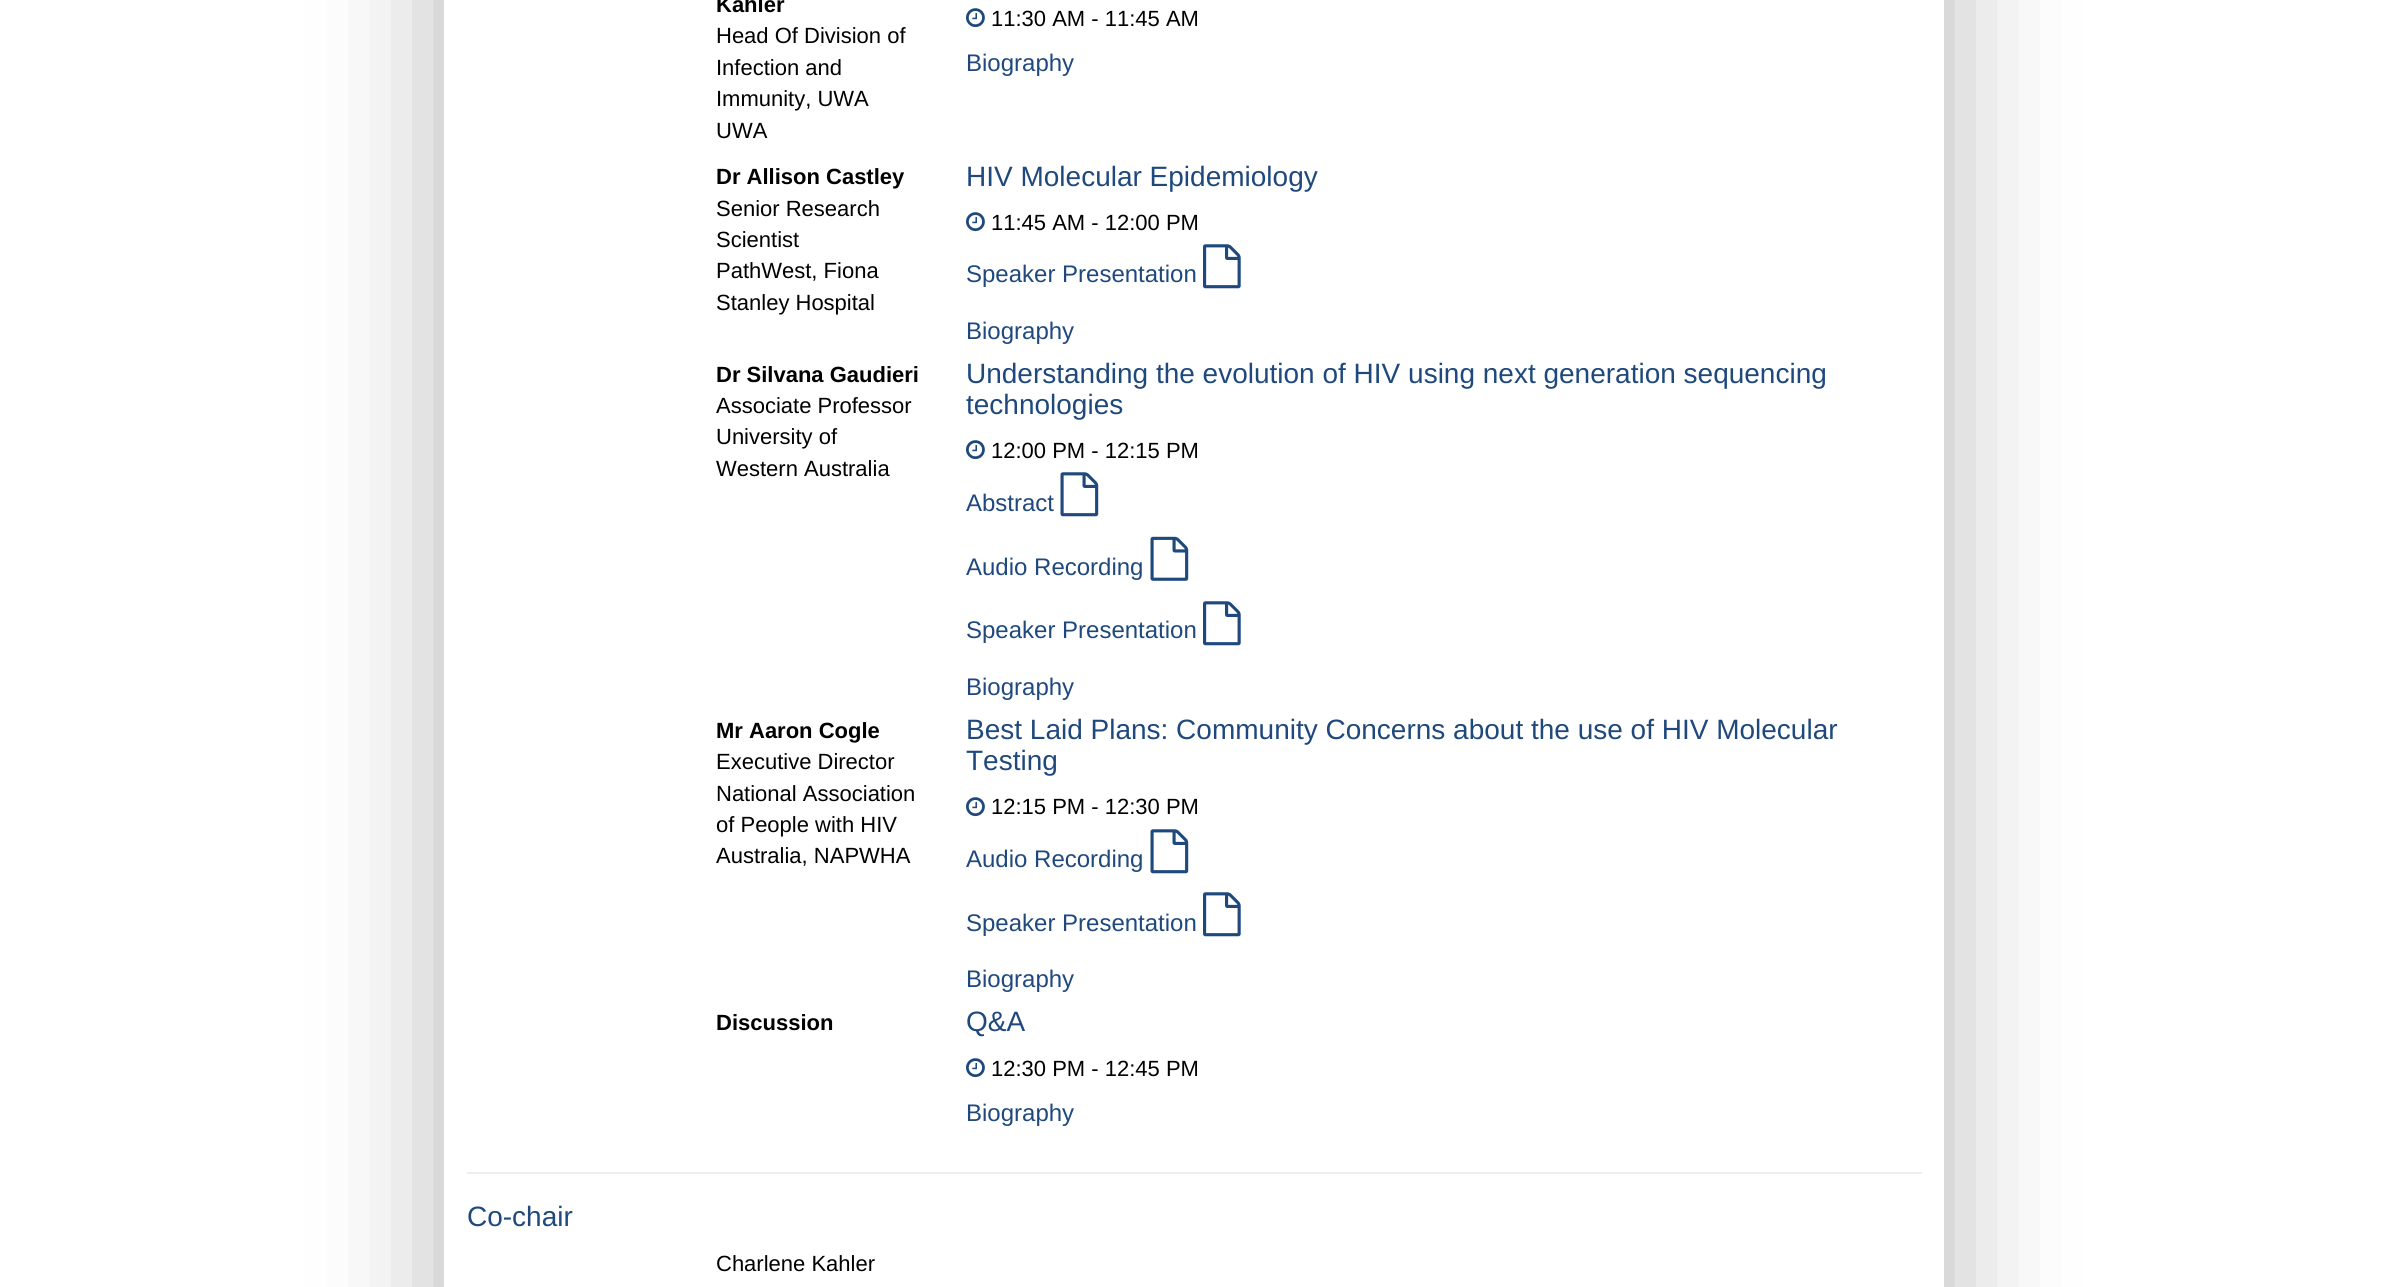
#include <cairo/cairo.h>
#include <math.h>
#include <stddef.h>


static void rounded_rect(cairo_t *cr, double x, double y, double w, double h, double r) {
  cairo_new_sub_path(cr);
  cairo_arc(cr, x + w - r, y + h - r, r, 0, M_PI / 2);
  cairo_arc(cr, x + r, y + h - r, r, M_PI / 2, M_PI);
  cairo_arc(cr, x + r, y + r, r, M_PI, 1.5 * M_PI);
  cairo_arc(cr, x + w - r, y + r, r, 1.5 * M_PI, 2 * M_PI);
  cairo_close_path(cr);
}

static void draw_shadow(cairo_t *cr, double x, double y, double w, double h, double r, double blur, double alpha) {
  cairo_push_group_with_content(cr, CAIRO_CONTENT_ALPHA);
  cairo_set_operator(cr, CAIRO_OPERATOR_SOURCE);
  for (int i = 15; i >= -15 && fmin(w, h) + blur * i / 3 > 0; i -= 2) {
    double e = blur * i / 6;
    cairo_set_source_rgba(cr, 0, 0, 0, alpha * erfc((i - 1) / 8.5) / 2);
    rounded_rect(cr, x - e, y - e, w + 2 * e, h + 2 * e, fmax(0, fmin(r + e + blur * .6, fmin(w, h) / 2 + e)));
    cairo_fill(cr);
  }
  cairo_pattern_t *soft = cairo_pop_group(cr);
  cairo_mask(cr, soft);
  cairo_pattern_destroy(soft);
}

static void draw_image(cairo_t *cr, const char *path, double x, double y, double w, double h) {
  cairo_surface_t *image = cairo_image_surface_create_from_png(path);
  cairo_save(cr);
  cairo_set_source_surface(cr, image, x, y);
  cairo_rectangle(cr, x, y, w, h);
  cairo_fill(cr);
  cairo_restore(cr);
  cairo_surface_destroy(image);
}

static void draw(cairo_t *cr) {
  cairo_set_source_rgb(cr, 1, 1, 1);
  cairo_paint(cr);
  cairo_save(cr);
  cairo_set_fill_rule(cr, CAIRO_FILL_RULE_EVEN_ODD);
  cairo_new_path(cr);
  cairo_move_to(cr, 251, 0);
  cairo_line_to(cr, 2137, 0);
  cairo_line_to(cr, 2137, 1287);
  cairo_line_to(cr, 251, 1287);
  cairo_close_path(cr);
  cairo_move_to(cr, 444, -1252);
  cairo_line_to(cr, 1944, -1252);
  cairo_line_to(cr, 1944, 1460);
  cairo_line_to(cr, 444, 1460);
  cairo_close_path(cr);
  cairo_clip(cr);
  cairo_set_source_rgb(cr, 0, 0, 0);
  draw_shadow(cr, 444, -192, 1500, 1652, 0, 64, 0.3);
  cairo_restore(cr);
  draw_image(cr, "images/1.png", 966, 8, 19, 20);
  draw_image(cr, "images/1.png", 966, 212, 19, 20);
  draw_image(cr, "images/2.png", 1203, 244, 38, 45);
  draw_image(cr, "images/1.png", 966, 440, 19, 20);
  draw_image(cr, "images/3.png", 1060, 472, 39, 45);
  draw_image(cr, "images/4.png", 1150, 536, 39, 45);
  draw_image(cr, "images/2.png", 1203, 601, 38, 45);
  draw_image(cr, "images/1.png", 966, 797, 19, 20);
  draw_image(cr, "images/3.png", 1150, 829, 39, 45);
  draw_image(cr, "images/2.png", 1203, 892, 38, 45);
  draw_image(cr, "images/1.png", 966, 1058, 19, 20);
  cairo_set_source_rgb(cr, 238 / 255.0, 238 / 255.0, 238 / 255.0);
  cairo_rectangle(cr, 467, 1172, 1455, 2);
  cairo_fill(cr);
  cairo_select_font_face(cr, "Liberation Sans", CAIRO_FONT_SLANT_NORMAL, CAIRO_FONT_WEIGHT_BOLD);
  cairo_set_font_size(cr, 22);
  cairo_set_source_rgb(cr, 0, 0, 0);
  cairo_move_to(cr, 716, 12);
  cairo_show_text(cr, "Kahler");
  cairo_select_font_face(cr, "Liberation Sans", CAIRO_FONT_SLANT_NORMAL, CAIRO_FONT_WEIGHT_NORMAL);
  cairo_move_to(cr, 716, 43);
  cairo_show_text(cr, "Head Of Division of");
  cairo_move_to(cr, 716, 75);
  cairo_show_text(cr, "Infection and");
  cairo_move_to(cr, 716, 106);
  cairo_show_text(cr, "Immunity, UWA");
  cairo_move_to(cr, 716, 138);
  cairo_show_text(cr, "UWA");
  cairo_move_to(cr, 991, 26);
  cairo_show_text(cr, "11:30 AM - 11:45 AM");
  cairo_set_font_size(cr, 24);
  cairo_set_source_rgb(cr, 31 / 255.0, 73 / 255.0, 125 / 255.0);
  cairo_move_to(cr, 966, 71);
  cairo_show_text(cr, "Biography");
  cairo_select_font_face(cr, "Liberation Sans", CAIRO_FONT_SLANT_NORMAL, CAIRO_FONT_WEIGHT_BOLD);
  cairo_set_font_size(cr, 22);
  cairo_set_source_rgb(cr, 0, 0, 0);
  cairo_move_to(cr, 716, 184);
  cairo_show_text(cr, "Dr Allison Castley");
  cairo_select_font_face(cr, "Liberation Sans", CAIRO_FONT_SLANT_NORMAL, CAIRO_FONT_WEIGHT_NORMAL);
  cairo_move_to(cr, 716, 216);
  cairo_show_text(cr, "Senior Research");
  cairo_move_to(cr, 716, 247);
  cairo_show_text(cr, "Scientist");
  cairo_move_to(cr, 716, 278);
  cairo_show_text(cr, "PathWest, Fiona");
  cairo_move_to(cr, 716, 310);
  cairo_show_text(cr, "Stanley Hospital");
  cairo_set_font_size(cr, 28);
  cairo_set_source_rgb(cr, 31 / 255.0, 73 / 255.0, 125 / 255.0);
  cairo_move_to(cr, 966, 186);
  cairo_show_text(cr, "HIV Molecular Epidemiology");
  cairo_set_font_size(cr, 22);
  cairo_set_source_rgb(cr, 0, 0, 0);
  cairo_move_to(cr, 991, 230);
  cairo_show_text(cr, "11:45 AM - 12:00 PM");
  cairo_set_font_size(cr, 24);
  cairo_set_source_rgb(cr, 31 / 255.0, 73 / 255.0, 125 / 255.0);
  cairo_move_to(cr, 966, 282);
  cairo_show_text(cr, "Speaker Presentation");
  cairo_move_to(cr, 966, 339);
  cairo_show_text(cr, "Biography");
  cairo_select_font_face(cr, "Liberation Sans", CAIRO_FONT_SLANT_NORMAL, CAIRO_FONT_WEIGHT_BOLD);
  cairo_set_font_size(cr, 22);
  cairo_set_source_rgb(cr, 0, 0, 0);
  cairo_move_to(cr, 716, 382);
  cairo_show_text(cr, "Dr Silvana Gaudieri");
  cairo_select_font_face(cr, "Liberation Sans", CAIRO_FONT_SLANT_NORMAL, CAIRO_FONT_WEIGHT_NORMAL);
  cairo_move_to(cr, 716, 413);
  cairo_show_text(cr, "Associate Professor");
  cairo_move_to(cr, 716, 444);
  cairo_show_text(cr, "University of");
  cairo_move_to(cr, 716, 476);
  cairo_show_text(cr, "Western Australia");
  cairo_set_font_size(cr, 28);
  cairo_set_source_rgb(cr, 31 / 255.0, 73 / 255.0, 125 / 255.0);
  cairo_move_to(cr, 966, 383);
  cairo_show_text(cr, "Understanding the evolution of HIV using next generation sequencing");
  cairo_move_to(cr, 966, 414);
  cairo_show_text(cr, "technologies");
  cairo_set_font_size(cr, 22);
  cairo_set_source_rgb(cr, 0, 0, 0);
  cairo_move_to(cr, 991, 458);
  cairo_show_text(cr, "12:00 PM - 12:15 PM");
  cairo_set_font_size(cr, 24);
  cairo_set_source_rgb(cr, 31 / 255.0, 73 / 255.0, 125 / 255.0);
  cairo_move_to(cr, 966, 511);
  cairo_show_text(cr, "Abstract");
  cairo_move_to(cr, 966, 575);
  cairo_show_text(cr, "Audio Recording");
  cairo_move_to(cr, 966, 638);
  cairo_show_text(cr, "Speaker Presentation");
  cairo_move_to(cr, 966, 695);
  cairo_show_text(cr, "Biography");
  cairo_select_font_face(cr, "Liberation Sans", CAIRO_FONT_SLANT_NORMAL, CAIRO_FONT_WEIGHT_BOLD);
  cairo_set_font_size(cr, 22);
  cairo_set_source_rgb(cr, 0, 0, 0);
  cairo_move_to(cr, 716, 738);
  cairo_show_text(cr, "Mr Aaron Cogle");
  cairo_select_font_face(cr, "Liberation Sans", CAIRO_FONT_SLANT_NORMAL, CAIRO_FONT_WEIGHT_NORMAL);
  cairo_move_to(cr, 716, 769);
  cairo_show_text(cr, "Executive Director");
  cairo_move_to(cr, 716, 801);
  cairo_show_text(cr, "National Association");
  cairo_move_to(cr, 716, 832);
  cairo_show_text(cr, "of People with HIV");
  cairo_move_to(cr, 716, 863);
  cairo_show_text(cr, "Australia, NAPWHA");
  cairo_set_font_size(cr, 28);
  cairo_set_source_rgb(cr, 31 / 255.0, 73 / 255.0, 125 / 255.0);
  cairo_move_to(cr, 966, 739);
  cairo_show_text(cr, "Best Laid Plans: Community Concerns about the use of HIV Molecular");
  cairo_move_to(cr, 966, 770);
  cairo_show_text(cr, "Testing");
  cairo_set_font_size(cr, 22);
  cairo_set_source_rgb(cr, 0, 0, 0);
  cairo_move_to(cr, 991, 814);
  cairo_show_text(cr, "12:15 PM - 12:30 PM");
  cairo_set_font_size(cr, 24);
  cairo_set_source_rgb(cr, 31 / 255.0, 73 / 255.0, 125 / 255.0);
  cairo_move_to(cr, 966, 867);
  cairo_show_text(cr, "Audio Recording");
  cairo_move_to(cr, 966, 931);
  cairo_show_text(cr, "Speaker Presentation");
  cairo_move_to(cr, 966, 987);
  cairo_show_text(cr, "Biography");
  cairo_select_font_face(cr, "Liberation Sans", CAIRO_FONT_SLANT_NORMAL, CAIRO_FONT_WEIGHT_BOLD);
  cairo_set_font_size(cr, 22);
  cairo_set_source_rgb(cr, 0, 0, 0);
  cairo_move_to(cr, 716, 1030);
  cairo_show_text(cr, "Discussion");
  cairo_select_font_face(cr, "Liberation Sans", CAIRO_FONT_SLANT_NORMAL, CAIRO_FONT_WEIGHT_NORMAL);
  cairo_set_font_size(cr, 28);
  cairo_set_source_rgb(cr, 31 / 255.0, 73 / 255.0, 125 / 255.0);
  cairo_move_to(cr, 966, 1031);
  cairo_show_text(cr, "Q&A");
  cairo_set_font_size(cr, 22);
  cairo_set_source_rgb(cr, 0, 0, 0);
  cairo_move_to(cr, 991, 1076);
  cairo_show_text(cr, "12:30 PM - 12:45 PM");
  cairo_set_font_size(cr, 24);
  cairo_set_source_rgb(cr, 31 / 255.0, 73 / 255.0, 125 / 255.0);
  cairo_move_to(cr, 966, 1121);
  cairo_show_text(cr, "Biography");
  cairo_set_font_size(cr, 28);
  cairo_move_to(cr, 467, 1226);
  cairo_show_text(cr, "Co-chair");
  cairo_set_font_size(cr, 22);
  cairo_set_source_rgb(cr, 0, 0, 0);
  cairo_move_to(cr, 716, 1271);
  cairo_show_text(cr, "Charlene Kahler");
}

int main(void) {
  cairo_surface_t *surface = cairo_image_surface_create(CAIRO_FORMAT_RGB24, 2388, 1287);
  cairo_t *cr = cairo_create(surface);
  cairo_font_options_t *options = cairo_font_options_create();
  cairo_font_options_set_hint_metrics(options, CAIRO_HINT_METRICS_OFF);
  cairo_font_options_set_hint_style(options, CAIRO_HINT_STYLE_NONE);
  cairo_set_font_options(cr, options);
  cairo_set_miter_limit(cr, 4);
  draw(cr);
  cairo_surface_write_to_png(surface, "out.png");
  cairo_font_options_destroy(options);
  cairo_destroy(cr);
  cairo_surface_destroy(surface);
  return 0;
}
